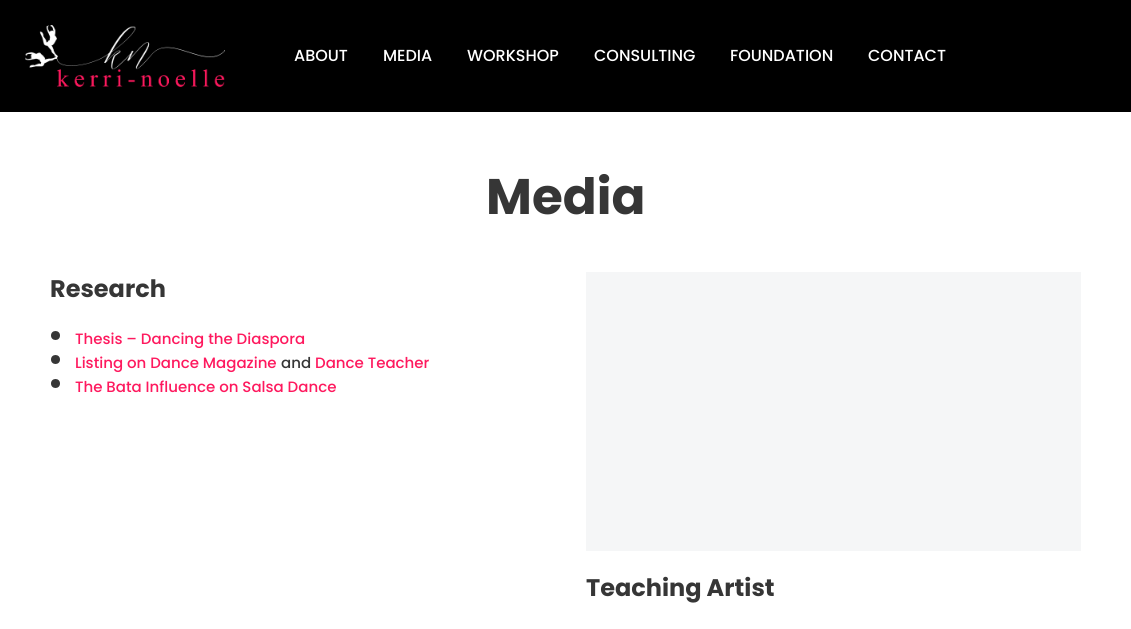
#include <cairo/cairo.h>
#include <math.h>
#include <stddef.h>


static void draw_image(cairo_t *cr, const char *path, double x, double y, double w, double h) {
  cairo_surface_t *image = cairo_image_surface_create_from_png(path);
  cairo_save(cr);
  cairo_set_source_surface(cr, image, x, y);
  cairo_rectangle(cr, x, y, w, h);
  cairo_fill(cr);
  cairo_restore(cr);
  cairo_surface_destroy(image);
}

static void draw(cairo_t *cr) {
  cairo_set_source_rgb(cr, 1, 1, 1);
  cairo_paint(cr);
  cairo_set_source_rgb(cr, 0, 0, 0);
  cairo_rectangle(cr, 0, 0, 1131, 112);
  cairo_fill(cr);
  draw_image(cr, "images/1.png", 25, 25, 200, 62);
  cairo_set_source_rgb(cr, 54 / 255.0, 54 / 255.0, 54 / 255.0);
  cairo_arc(cr, 55.5, 335.5, 4.5, 0, 2 * M_PI);
  cairo_fill(cr);
  cairo_arc(cr, 55.5, 359.5, 4.5, 0, 2 * M_PI);
  cairo_fill(cr);
  cairo_arc(cr, 55.5, 383.5, 4.5, 0, 2 * M_PI);
  cairo_fill(cr);
  cairo_set_source_rgb(cr, 245 / 255.0, 246 / 255.0, 247 / 255.0);
  cairo_rectangle(cr, 586, 272, 495, 279);
  cairo_fill(cr);
  cairo_select_font_face(cr, "Poppins Medium", CAIRO_FONT_SLANT_NORMAL, CAIRO_FONT_WEIGHT_NORMAL);
  cairo_set_font_size(cr, 16);
  cairo_set_source_rgb(cr, 1, 1, 1);
  cairo_move_to(cr, 294, 61);
  cairo_show_text(cr, "ABOUT");
  cairo_move_to(cr, 383, 61);
  cairo_show_text(cr, "MEDIA");
  cairo_move_to(cr, 467, 61);
  cairo_show_text(cr, "WORKSHOP");
  cairo_move_to(cr, 594, 61);
  cairo_show_text(cr, "CONSULTING");
  cairo_move_to(cr, 730, 61);
  cairo_show_text(cr, "FOUNDATION");
  cairo_move_to(cr, 868, 61);
  cairo_show_text(cr, "CONTACT");
  cairo_select_font_face(cr, "Poppins", CAIRO_FONT_SLANT_NORMAL, CAIRO_FONT_WEIGHT_BOLD);
  cairo_set_font_size(cr, 50);
  cairo_set_source_rgb(cr, 54 / 255.0, 54 / 255.0, 54 / 255.0);
  cairo_move_to(cr, 486, 214);
  cairo_show_text(cr, "Media");
  cairo_set_font_size(cr, 24);
  cairo_move_to(cr, 50, 297);
  cairo_show_text(cr, "Research");
  cairo_select_font_face(cr, "Poppins Medium", CAIRO_FONT_SLANT_NORMAL, CAIRO_FONT_WEIGHT_NORMAL);
  cairo_set_font_size(cr, 15);
  cairo_set_source_rgb(cr, 254 / 255.0, 25 / 255.0, 94 / 255.0);
  cairo_move_to(cr, 75, 344);
  cairo_show_text(cr, "Thesis – Dancing the Diaspora");
  cairo_move_to(cr, 75, 368);
  cairo_show_text(cr, "Listing on Dance Magazine");
  cairo_set_source_rgb(cr, 54 / 255.0, 54 / 255.0, 54 / 255.0);
  cairo_move_to(cr, 281, 368);
  cairo_show_text(cr, "and");
  cairo_set_source_rgb(cr, 254 / 255.0, 25 / 255.0, 94 / 255.0);
  cairo_move_to(cr, 315, 368);
  cairo_show_text(cr, "Dance Teacher");
  cairo_move_to(cr, 75, 392);
  cairo_show_text(cr, "The Bata Influence on Salsa Dance");
  cairo_select_font_face(cr, "Poppins", CAIRO_FONT_SLANT_NORMAL, CAIRO_FONT_WEIGHT_BOLD);
  cairo_set_font_size(cr, 24);
  cairo_set_source_rgb(cr, 54 / 255.0, 54 / 255.0, 54 / 255.0);
  cairo_move_to(cr, 586, 596);
  cairo_show_text(cr, "Teaching Artist");
}

int main(void) {
  cairo_surface_t *surface = cairo_image_surface_create(CAIRO_FORMAT_RGB24, 1131, 629);
  cairo_t *cr = cairo_create(surface);
  cairo_font_options_t *options = cairo_font_options_create();
  cairo_font_options_set_hint_metrics(options, CAIRO_HINT_METRICS_OFF);
  cairo_font_options_set_hint_style(options, CAIRO_HINT_STYLE_NONE);
  cairo_set_font_options(cr, options);
  cairo_set_miter_limit(cr, 4);
  draw(cr);
  cairo_surface_write_to_png(surface, "out.png");
  cairo_font_options_destroy(options);
  cairo_destroy(cr);
  cairo_surface_destroy(surface);
  return 0;
}
